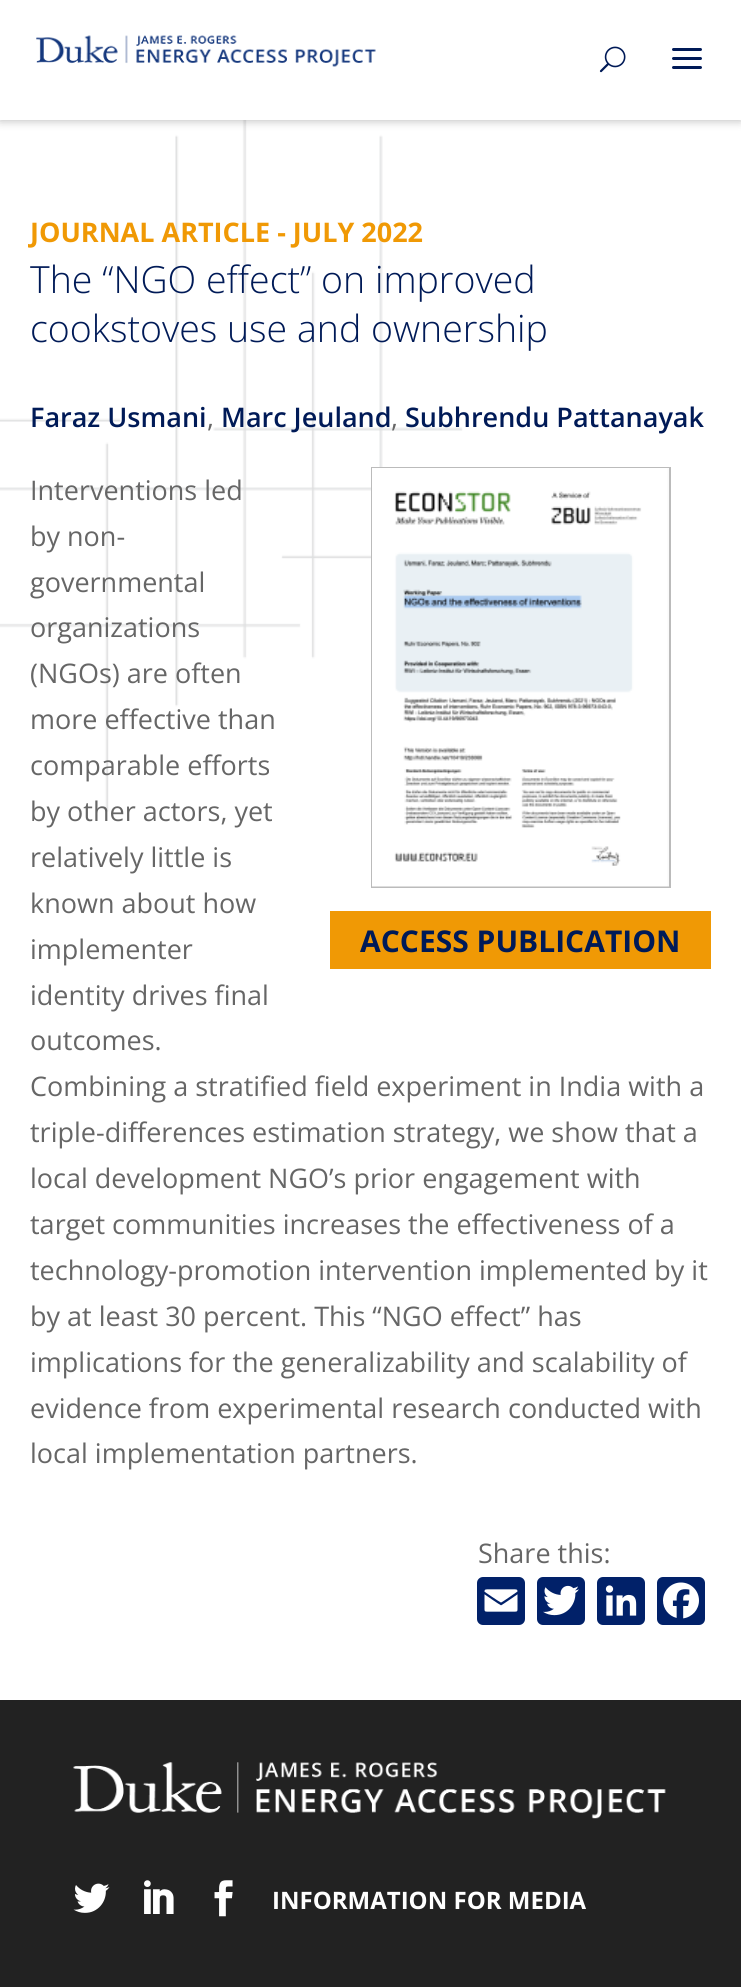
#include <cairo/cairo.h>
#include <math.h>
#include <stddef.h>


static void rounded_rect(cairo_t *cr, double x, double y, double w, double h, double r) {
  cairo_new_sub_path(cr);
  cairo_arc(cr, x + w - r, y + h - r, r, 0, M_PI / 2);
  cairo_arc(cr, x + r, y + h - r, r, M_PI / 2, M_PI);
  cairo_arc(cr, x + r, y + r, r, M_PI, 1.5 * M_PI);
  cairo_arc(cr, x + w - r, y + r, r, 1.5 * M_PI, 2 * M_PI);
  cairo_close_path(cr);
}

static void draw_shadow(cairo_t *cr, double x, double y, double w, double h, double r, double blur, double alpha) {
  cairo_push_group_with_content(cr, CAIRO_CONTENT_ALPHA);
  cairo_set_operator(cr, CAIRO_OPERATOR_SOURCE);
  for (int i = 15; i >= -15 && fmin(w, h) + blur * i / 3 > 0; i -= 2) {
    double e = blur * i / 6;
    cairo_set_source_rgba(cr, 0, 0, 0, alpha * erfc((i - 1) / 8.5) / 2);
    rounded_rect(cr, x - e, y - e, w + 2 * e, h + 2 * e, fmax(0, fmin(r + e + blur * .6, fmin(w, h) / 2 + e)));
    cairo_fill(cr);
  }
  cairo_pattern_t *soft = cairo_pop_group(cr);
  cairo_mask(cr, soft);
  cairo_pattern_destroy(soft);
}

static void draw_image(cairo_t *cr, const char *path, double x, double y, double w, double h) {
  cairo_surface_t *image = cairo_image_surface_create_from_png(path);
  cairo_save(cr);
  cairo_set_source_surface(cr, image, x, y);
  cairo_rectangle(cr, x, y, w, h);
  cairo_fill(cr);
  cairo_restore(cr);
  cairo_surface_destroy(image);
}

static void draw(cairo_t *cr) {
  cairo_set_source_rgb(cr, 1, 1, 1);
  cairo_paint(cr);
  draw_image(cr, "images/4.png", 0, 120, 463, 692);
  cairo_set_source_rgb(cr, 0, 0, 0);
  draw_shadow(cr, 0, 0, 741, 120, 0, 5, 0.3);
  cairo_set_source_rgb(cr, 1, 1, 1);
  cairo_rectangle(cr, 0, 0, 741, 120);
  cairo_fill(cr);
  draw_image(cr, "images/1.png", 36, 35, 340, 32);
  draw_image(cr, "images/2.png", 599, 46, 27, 27);
  draw_image(cr, "images/3.png", 672, 48, 30, 21);
  cairo_rectangle(cr, 372, 468, 298, 419);
  cairo_set_source_rgb(cr, 187 / 255.0, 187 / 255.0, 187 / 255.0);
  cairo_stroke(cr);
  draw_image(cr, "images/5.png", 372, 468, 297, 419);
  cairo_set_source_rgb(cr, 240 / 255.0, 153 / 255.0, 5 / 255.0);
  cairo_rectangle(cr, 330, 911, 381, 58);
  cairo_fill(cr);
  cairo_set_source_rgb(cr, 1 / 255.0, 33 / 255.0, 105 / 255.0);
  rounded_rect(cr, 477, 1577, 48, 48, 6);
  cairo_fill(cr);
  draw_image(cr, "images/6.png", 484, 1589, 34, 23);
  rounded_rect(cr, 537, 1577, 48, 48, 6);
  cairo_fill(cr);
  draw_image(cr, "images/7.png", 543, 1585, 36, 31);
  rounded_rect(cr, 597, 1577, 48, 48, 6);
  cairo_fill(cr);
  draw_image(cr, "images/8.png", 605, 1585, 32, 31);
  rounded_rect(cr, 657, 1577, 48, 48, 6);
  cairo_fill(cr);
  draw_image(cr, "images/9.png", 663, 1582, 36, 37);
  cairo_set_source_rgb(cr, 34 / 255.0, 34 / 255.0, 34 / 255.0);
  cairo_rectangle(cr, 0, 1700, 741, 287);
  cairo_fill(cr);
  draw_image(cr, "images/10.png", 73, 1762, 593, 57);
  draw_image(cr, "images/11.png", 73, 1883, 37, 30);
  draw_image(cr, "images/12.png", 144, 1880, 30, 34);
  draw_image(cr, "images/13.png", 214, 1880, 19, 37);
  cairo_select_font_face(cr, "Open Sans", CAIRO_FONT_SLANT_NORMAL, CAIRO_FONT_WEIGHT_BOLD);
  cairo_set_font_size(cr, 27);
  cairo_set_source_rgb(cr, 240 / 255.0, 153 / 255.0, 5 / 255.0);
  cairo_move_to(cr, 30, 242);
  cairo_show_text(cr, "JOURNAL ARTICLE - JULY 2022");
  cairo_select_font_face(cr, "Open Sans Light", CAIRO_FONT_SLANT_NORMAL, CAIRO_FONT_WEIGHT_NORMAL);
  cairo_set_font_size(cr, 37.5);
  cairo_set_source_rgb(cr, 0, 26 / 255.0, 87 / 255.0);
  cairo_move_to(cr, 30, 293);
  cairo_show_text(cr, "The “NGO effect” on improved");
  cairo_move_to(cr, 30, 342);
  cairo_show_text(cr, "cookstoves use and ownership");
  cairo_select_font_face(cr, "Open Sans SemiBold", CAIRO_FONT_SLANT_NORMAL, CAIRO_FONT_WEIGHT_NORMAL);
  cairo_set_font_size(cr, 27);
  cairo_move_to(cr, 30, 427);
  cairo_show_text(cr, "Faraz Usmani");
  cairo_select_font_face(cr, "Open Sans", CAIRO_FONT_SLANT_NORMAL, CAIRO_FONT_WEIGHT_NORMAL);
  cairo_set_source_rgb(cr, 102 / 255.0, 102 / 255.0, 102 / 255.0);
  cairo_move_to(cr, 207, 427);
  cairo_show_text(cr, ",");
  cairo_select_font_face(cr, "Open Sans SemiBold", CAIRO_FONT_SLANT_NORMAL, CAIRO_FONT_WEIGHT_NORMAL);
  cairo_set_source_rgb(cr, 0, 26 / 255.0, 87 / 255.0);
  cairo_move_to(cr, 221, 427);
  cairo_show_text(cr, "Marc Jeuland");
  cairo_select_font_face(cr, "Open Sans", CAIRO_FONT_SLANT_NORMAL, CAIRO_FONT_WEIGHT_NORMAL);
  cairo_set_source_rgb(cr, 102 / 255.0, 102 / 255.0, 102 / 255.0);
  cairo_move_to(cr, 391, 427);
  cairo_show_text(cr, ",");
  cairo_select_font_face(cr, "Open Sans SemiBold", CAIRO_FONT_SLANT_NORMAL, CAIRO_FONT_WEIGHT_NORMAL);
  cairo_set_source_rgb(cr, 0, 26 / 255.0, 87 / 255.0);
  cairo_move_to(cr, 405, 427);
  cairo_show_text(cr, "Subhrendu Pattanayak");
  cairo_select_font_face(cr, "Open Sans", CAIRO_FONT_SLANT_NORMAL, CAIRO_FONT_WEIGHT_NORMAL);
  cairo_set_source_rgb(cr, 102 / 255.0, 102 / 255.0, 102 / 255.0);
  cairo_move_to(cr, 30, 500);
  cairo_show_text(cr, "Interventions led");
  cairo_move_to(cr, 30, 546);
  cairo_show_text(cr, "by non-");
  cairo_move_to(cr, 30, 592);
  cairo_show_text(cr, "governmental");
  cairo_move_to(cr, 30, 637);
  cairo_show_text(cr, "organizations");
  cairo_move_to(cr, 30, 683);
  cairo_show_text(cr, "(NGOs) are often");
  cairo_move_to(cr, 30, 729);
  cairo_show_text(cr, "more effective than");
  cairo_move_to(cr, 30, 775);
  cairo_show_text(cr, "comparable efforts");
  cairo_move_to(cr, 30, 821);
  cairo_show_text(cr, "by other actors, yet");
  cairo_move_to(cr, 30, 867);
  cairo_show_text(cr, "relatively little is");
  cairo_move_to(cr, 30, 913);
  cairo_show_text(cr, "known about how");
  cairo_move_to(cr, 30, 959);
  cairo_show_text(cr, "implementer");
  cairo_move_to(cr, 30, 1005);
  cairo_show_text(cr, "identity drives final");
  cairo_move_to(cr, 30, 1050);
  cairo_show_text(cr, "outcomes.");
  cairo_move_to(cr, 30, 1096);
  cairo_show_text(cr, "Combining a stratified field experiment in India with a");
  cairo_move_to(cr, 30, 1142);
  cairo_show_text(cr, "triple-differences estimation strategy, we show that a");
  cairo_move_to(cr, 30, 1188);
  cairo_show_text(cr, "local development NGO’s prior engagement with");
  cairo_move_to(cr, 30, 1234);
  cairo_show_text(cr, "target communities increases the effectiveness of a");
  cairo_move_to(cr, 30, 1280);
  cairo_show_text(cr, "technology-promotion intervention implemented by it");
  cairo_move_to(cr, 30, 1326);
  cairo_show_text(cr, "by at least 30 percent. This “NGO effect” has");
  cairo_move_to(cr, 30, 1372);
  cairo_show_text(cr, "implications for the generalizability and scalability of");
  cairo_move_to(cr, 30, 1418);
  cairo_show_text(cr, "evidence from experimental research conducted with");
  cairo_move_to(cr, 30, 1463);
  cairo_show_text(cr, "local implementation partners.");
  cairo_select_font_face(cr, "Open Sans", CAIRO_FONT_SLANT_NORMAL, CAIRO_FONT_WEIGHT_BOLD);
  cairo_set_font_size(cr, 30);
  cairo_set_source_rgb(cr, 0, 26 / 255.0, 87 / 255.0);
  cairo_move_to(cr, 360, 952);
  cairo_show_text(cr, "ACCESS PUBLICATION");
  cairo_select_font_face(cr, "Open Sans", CAIRO_FONT_SLANT_NORMAL, CAIRO_FONT_WEIGHT_NORMAL);
  cairo_set_font_size(cr, 27);
  cairo_set_source_rgb(cr, 102 / 255.0, 102 / 255.0, 102 / 255.0);
  cairo_move_to(cr, 478, 1563);
  cairo_show_text(cr, "Share this:");
  cairo_select_font_face(cr, "Open Sans", CAIRO_FONT_SLANT_NORMAL, CAIRO_FONT_WEIGHT_BOLD);
  cairo_set_font_size(cr, 24);
  cairo_set_source_rgb(cr, 1, 1, 1);
  cairo_move_to(cr, 272, 1909);
  cairo_show_text(cr, "INFORMATION FOR MEDIA");
}

int main(void) {
  cairo_surface_t *surface = cairo_image_surface_create(CAIRO_FORMAT_RGB24, 741, 1987);
  cairo_t *cr = cairo_create(surface);
  cairo_font_options_t *options = cairo_font_options_create();
  cairo_font_options_set_hint_metrics(options, CAIRO_HINT_METRICS_OFF);
  cairo_font_options_set_hint_style(options, CAIRO_HINT_STYLE_NONE);
  cairo_set_font_options(cr, options);
  cairo_set_miter_limit(cr, 4);
  draw(cr);
  cairo_surface_write_to_png(surface, "out.png");
  cairo_font_options_destroy(options);
  cairo_destroy(cr);
  cairo_surface_destroy(surface);
  return 0;
}
